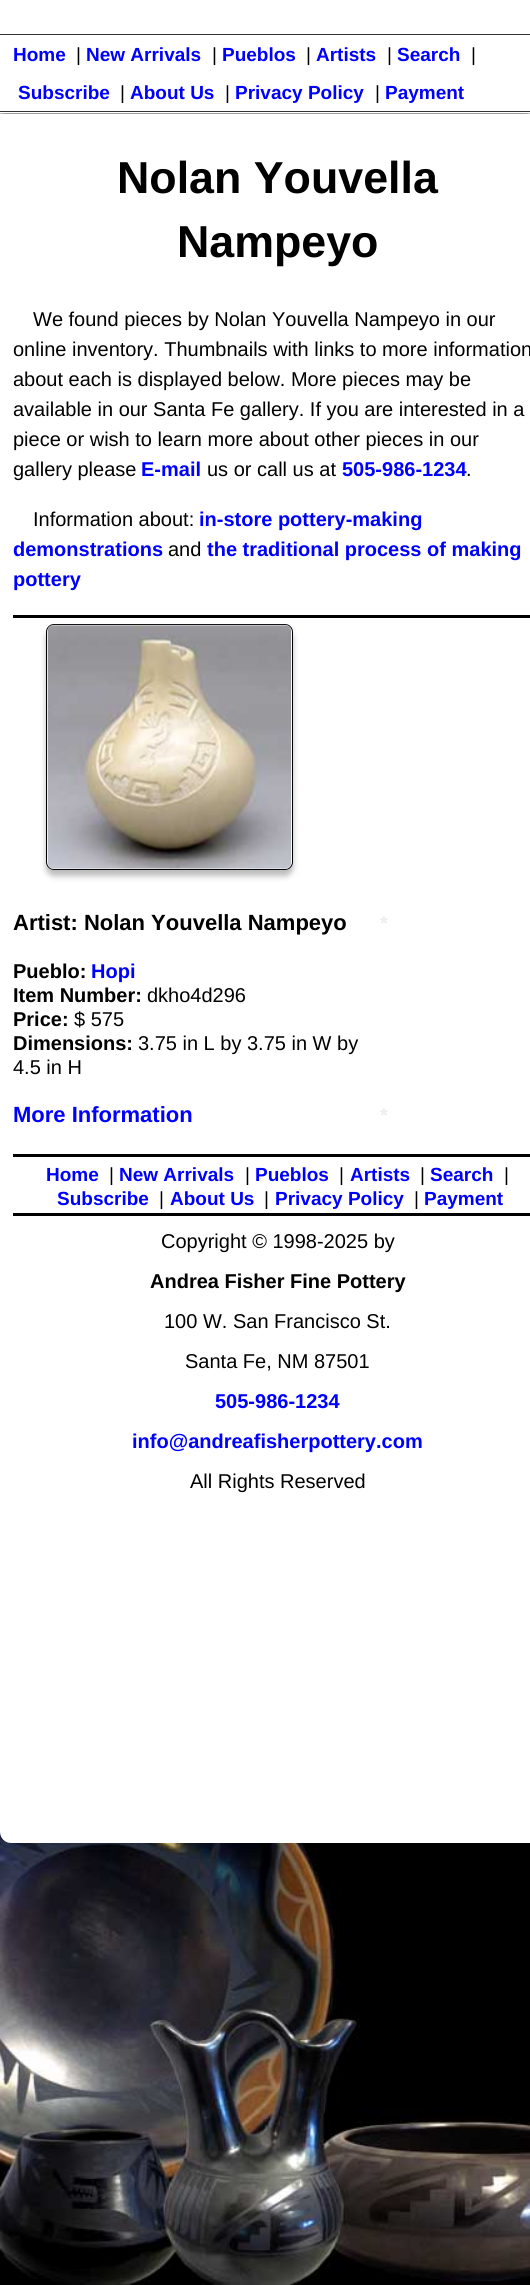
#include <cairo/cairo.h>
#include <math.h>
#include <stddef.h>


static void rounded_rect(cairo_t *cr, double x, double y, double w, double h, double r) {
  cairo_new_sub_path(cr);
  cairo_arc(cr, x + w - r, y + h - r, r, 0, M_PI / 2);
  cairo_arc(cr, x + r, y + h - r, r, M_PI / 2, M_PI);
  cairo_arc(cr, x + r, y + r, r, M_PI, 1.5 * M_PI);
  cairo_arc(cr, x + w - r, y + r, r, 1.5 * M_PI, 2 * M_PI);
  cairo_close_path(cr);
}

static void draw_shadow(cairo_t *cr, double x, double y, double w, double h, double r, double blur, double alpha) {
  cairo_push_group_with_content(cr, CAIRO_CONTENT_ALPHA);
  cairo_set_operator(cr, CAIRO_OPERATOR_SOURCE);
  for (int i = 15; i >= -15 && fmin(w, h) + blur * i / 3 > 0; i -= 2) {
    double e = blur * i / 6;
    cairo_set_source_rgba(cr, 0, 0, 0, alpha * erfc((i - 1) / 8.5) / 2);
    rounded_rect(cr, x - e, y - e, w + 2 * e, h + 2 * e, fmax(0, fmin(r + e + blur * .6, fmin(w, h) / 2 + e)));
    cairo_fill(cr);
  }
  cairo_pattern_t *soft = cairo_pop_group(cr);
  cairo_mask(cr, soft);
  cairo_pattern_destroy(soft);
}

static void draw_image(cairo_t *cr, const char *path, double x, double y, double w, double h) {
  cairo_surface_t *image = cairo_image_surface_create_from_png(path);
  cairo_save(cr);
  cairo_set_source_surface(cr, image, x, y);
  cairo_rectangle(cr, x, y, w, h);
  cairo_fill(cr);
  cairo_restore(cr);
  cairo_surface_destroy(image);
}

static void draw(cairo_t *cr) {
  cairo_set_source_rgb(cr, 1, 1, 1);
  cairo_paint(cr);
  draw_image(cr, "images/1.png", 0, 1832, 530, 453);
  cairo_save(cr);
  cairo_set_fill_rule(cr, CAIRO_FILL_RULE_EVEN_ODD);
  cairo_new_path(cr);
  cairo_move_to(cr, 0, 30);
  cairo_line_to(cr, 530, 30);
  cairo_line_to(cr, 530, 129);
  cairo_line_to(cr, 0, 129);
  cairo_close_path(cr);
  cairo_move_to(cr, 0, 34);
  cairo_line_to(cr, 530, 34);
  cairo_line_to(cr, 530, 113);
  cairo_line_to(cr, 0, 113);
  cairo_close_path(cr);
  cairo_clip(cr);
  cairo_set_source_rgb(cr, 153 / 255.0, 153 / 255.0, 153 / 255.0);
  draw_shadow(cr, 0, 40, 530, 79, 0, 3, 1);
  cairo_restore(cr);
  cairo_set_source_rgb(cr, 51 / 255.0, 51 / 255.0, 51 / 255.0);
  cairo_rectangle(cr, 0, 34, 530, 1);
  cairo_fill(cr);
  cairo_rectangle(cr, 0, 111, 530, 1);
  cairo_fill(cr);
  cairo_set_source_rgb(cr, 1, 1, 1);
  cairo_new_path(cr);
  cairo_move_to(cr, 0, 114);
  cairo_line_to(cr, 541, 114);
  cairo_line_to(cr, 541, 1832);
  cairo_curve_to(cr, 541, 1838, 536, 1843, 530, 1843);
  cairo_line_to(cr, 11, 1843);
  cairo_curve_to(cr, 5, 1843, 0, 1838, 0, 1832);
  cairo_close_path(cr);
  cairo_fill(cr);
  cairo_set_source_rgb(cr, 0, 0, 0);
  cairo_rectangle(cr, 13, 615, 517, 3);
  cairo_fill(cr);
  cairo_save(cr);
  cairo_set_fill_rule(cr, CAIRO_FILL_RULE_EVEN_ODD);
  cairo_new_path(cr);
  cairo_move_to(cr, 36, 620);
  cairo_line_to(cr, 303, 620);
  cairo_line_to(cr, 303, 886);
  cairo_line_to(cr, 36, 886);
  cairo_close_path(cr);
  cairo_move_to(cr, 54, 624);
  cairo_line_to(cr, 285, 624);
  cairo_curve_to(cr, 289.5, 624, 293, 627.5, 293, 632);
  cairo_line_to(cr, 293, 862);
  cairo_curve_to(cr, 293, 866.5, 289.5, 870, 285, 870);
  cairo_line_to(cr, 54, 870);
  cairo_curve_to(cr, 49.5, 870, 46, 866.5, 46, 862);
  cairo_line_to(cr, 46, 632);
  cairo_curve_to(cr, 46, 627.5, 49.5, 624, 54, 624);
  cairo_close_path(cr);
  cairo_clip(cr);
  cairo_set_source_rgb(cr, 187 / 255.0, 187 / 255.0, 187 / 255.0);
  draw_shadow(cr, 46, 630, 247, 246, 8, 3, 1);
  cairo_restore(cr);
  rounded_rect(cr, 46.5, 624.5, 246, 245, 7.5);
  cairo_set_line_width(cr, 1);
  cairo_stroke(cr);
  draw_image(cr, "images/2.png", 47, 624, 245, 246);
  cairo_rectangle(cr, 13, 1154, 517, 3);
  cairo_fill(cr);
  cairo_rectangle(cr, 13, 1213, 517, 3);
  cairo_fill(cr);
  cairo_select_font_face(cr, "Liberation Sans", CAIRO_FONT_SLANT_NORMAL, CAIRO_FONT_WEIGHT_BOLD);
  cairo_set_font_size(cr, 19);
  cairo_set_source_rgb(cr, 0, 0, 1);
  cairo_move_to(cr, 13, 61);
  cairo_show_text(cr, "Home");
  cairo_select_font_face(cr, "Liberation Sans", CAIRO_FONT_SLANT_NORMAL, CAIRO_FONT_WEIGHT_NORMAL);
  cairo_set_source_rgb(cr, 0, 0, 0);
  cairo_move_to(cr, 76, 61);
  cairo_show_text(cr, "|");
  cairo_select_font_face(cr, "Liberation Sans", CAIRO_FONT_SLANT_NORMAL, CAIRO_FONT_WEIGHT_BOLD);
  cairo_set_source_rgb(cr, 0, 0, 1);
  cairo_move_to(cr, 86, 61);
  cairo_show_text(cr, "New Arrivals");
  cairo_select_font_face(cr, "Liberation Sans", CAIRO_FONT_SLANT_NORMAL, CAIRO_FONT_WEIGHT_NORMAL);
  cairo_set_source_rgb(cr, 0, 0, 0);
  cairo_move_to(cr, 212, 61);
  cairo_show_text(cr, "|");
  cairo_select_font_face(cr, "Liberation Sans", CAIRO_FONT_SLANT_NORMAL, CAIRO_FONT_WEIGHT_BOLD);
  cairo_set_source_rgb(cr, 0, 0, 1);
  cairo_move_to(cr, 222, 61);
  cairo_show_text(cr, "Pueblos");
  cairo_select_font_face(cr, "Liberation Sans", CAIRO_FONT_SLANT_NORMAL, CAIRO_FONT_WEIGHT_NORMAL);
  cairo_set_source_rgb(cr, 0, 0, 0);
  cairo_move_to(cr, 306, 61);
  cairo_show_text(cr, "|");
  cairo_select_font_face(cr, "Liberation Sans", CAIRO_FONT_SLANT_NORMAL, CAIRO_FONT_WEIGHT_BOLD);
  cairo_set_source_rgb(cr, 0, 0, 1);
  cairo_move_to(cr, 316, 61);
  cairo_show_text(cr, "Artists");
  cairo_select_font_face(cr, "Liberation Sans", CAIRO_FONT_SLANT_NORMAL, CAIRO_FONT_WEIGHT_NORMAL);
  cairo_set_source_rgb(cr, 0, 0, 0);
  cairo_move_to(cr, 387, 61);
  cairo_show_text(cr, "|");
  cairo_select_font_face(cr, "Liberation Sans", CAIRO_FONT_SLANT_NORMAL, CAIRO_FONT_WEIGHT_BOLD);
  cairo_set_source_rgb(cr, 0, 0, 1);
  cairo_move_to(cr, 397, 61);
  cairo_show_text(cr, "Search");
  cairo_select_font_face(cr, "Liberation Sans", CAIRO_FONT_SLANT_NORMAL, CAIRO_FONT_WEIGHT_NORMAL);
  cairo_set_source_rgb(cr, 0, 0, 0);
  cairo_move_to(cr, 471, 61);
  cairo_show_text(cr, "|");
  cairo_select_font_face(cr, "Liberation Sans", CAIRO_FONT_SLANT_NORMAL, CAIRO_FONT_WEIGHT_BOLD);
  cairo_set_source_rgb(cr, 0, 0, 1);
  cairo_move_to(cr, 18, 99);
  cairo_show_text(cr, "Subscribe");
  cairo_select_font_face(cr, "Liberation Sans", CAIRO_FONT_SLANT_NORMAL, CAIRO_FONT_WEIGHT_NORMAL);
  cairo_set_source_rgb(cr, 0, 0, 0);
  cairo_move_to(cr, 120, 99);
  cairo_show_text(cr, "|");
  cairo_select_font_face(cr, "Liberation Sans", CAIRO_FONT_SLANT_NORMAL, CAIRO_FONT_WEIGHT_BOLD);
  cairo_set_source_rgb(cr, 0, 0, 1);
  cairo_move_to(cr, 130, 99);
  cairo_show_text(cr, "About Us");
  cairo_select_font_face(cr, "Liberation Sans", CAIRO_FONT_SLANT_NORMAL, CAIRO_FONT_WEIGHT_NORMAL);
  cairo_set_source_rgb(cr, 0, 0, 0);
  cairo_move_to(cr, 225, 99);
  cairo_show_text(cr, "|");
  cairo_select_font_face(cr, "Liberation Sans", CAIRO_FONT_SLANT_NORMAL, CAIRO_FONT_WEIGHT_BOLD);
  cairo_set_source_rgb(cr, 0, 0, 1);
  cairo_move_to(cr, 235, 99);
  cairo_show_text(cr, "Privacy Policy");
  cairo_select_font_face(cr, "Liberation Sans", CAIRO_FONT_SLANT_NORMAL, CAIRO_FONT_WEIGHT_NORMAL);
  cairo_set_source_rgb(cr, 0, 0, 0);
  cairo_move_to(cr, 375, 99);
  cairo_show_text(cr, "|");
  cairo_select_font_face(cr, "Liberation Sans", CAIRO_FONT_SLANT_NORMAL, CAIRO_FONT_WEIGHT_BOLD);
  cairo_set_source_rgb(cr, 0, 0, 1);
  cairo_move_to(cr, 385, 99);
  cairo_show_text(cr, "Payment");
  cairo_set_font_size(cr, 44.75);
  cairo_set_source_rgb(cr, 0, 0, 0);
  cairo_move_to(cr, 117, 193);
  cairo_show_text(cr, "Nolan Youvella");
  cairo_move_to(cr, 177, 257);
  cairo_show_text(cr, "Nampeyo");
  cairo_select_font_face(cr, "Liberation Sans", CAIRO_FONT_SLANT_NORMAL, CAIRO_FONT_WEIGHT_NORMAL);
  cairo_set_font_size(cr, 20);
  cairo_move_to(cr, 33, 326);
  cairo_show_text(cr, "We found pieces by Nolan Youvella Nampeyo in our");
  cairo_move_to(cr, 13, 356);
  cairo_show_text(cr, "online inventory. Thumbnails with links to more information");
  cairo_move_to(cr, 13, 386);
  cairo_show_text(cr, "about each is displayed below. More pieces may be");
  cairo_move_to(cr, 13, 416);
  cairo_show_text(cr, "available in our Santa Fe gallery. If you are interested in a");
  cairo_move_to(cr, 13, 446);
  cairo_show_text(cr, "piece or wish to learn more about other pieces in our");
  cairo_move_to(cr, 13, 476);
  cairo_show_text(cr, "gallery please");
  cairo_select_font_face(cr, "Liberation Sans", CAIRO_FONT_SLANT_NORMAL, CAIRO_FONT_WEIGHT_BOLD);
  cairo_set_source_rgb(cr, 0, 0, 1);
  cairo_move_to(cr, 141, 476);
  cairo_show_text(cr, "E-mail");
  cairo_select_font_face(cr, "Liberation Sans", CAIRO_FONT_SLANT_NORMAL, CAIRO_FONT_WEIGHT_NORMAL);
  cairo_set_source_rgb(cr, 0, 0, 0);
  cairo_move_to(cr, 207, 476);
  cairo_show_text(cr, "us or call us at");
  cairo_select_font_face(cr, "Liberation Sans", CAIRO_FONT_SLANT_NORMAL, CAIRO_FONT_WEIGHT_BOLD);
  cairo_set_source_rgb(cr, 0, 0, 1);
  cairo_move_to(cr, 342, 476);
  cairo_show_text(cr, "505-986-1234");
  cairo_select_font_face(cr, "Liberation Sans", CAIRO_FONT_SLANT_NORMAL, CAIRO_FONT_WEIGHT_NORMAL);
  cairo_set_source_rgb(cr, 0, 0, 0);
  cairo_move_to(cr, 466, 476);
  cairo_show_text(cr, ".");
  cairo_move_to(cr, 33, 526);
  cairo_show_text(cr, "Information about:");
  cairo_select_font_face(cr, "Liberation Sans", CAIRO_FONT_SLANT_NORMAL, CAIRO_FONT_WEIGHT_BOLD);
  cairo_set_source_rgb(cr, 0, 0, 1);
  cairo_move_to(cr, 199, 526);
  cairo_show_text(cr, "in-store pottery-making");
  cairo_move_to(cr, 13, 556);
  cairo_show_text(cr, "demonstrations");
  cairo_select_font_face(cr, "Liberation Sans", CAIRO_FONT_SLANT_NORMAL, CAIRO_FONT_WEIGHT_NORMAL);
  cairo_set_source_rgb(cr, 0, 0, 0);
  cairo_move_to(cr, 168, 556);
  cairo_show_text(cr, "and");
  cairo_select_font_face(cr, "Liberation Sans", CAIRO_FONT_SLANT_NORMAL, CAIRO_FONT_WEIGHT_BOLD);
  cairo_set_source_rgb(cr, 0, 0, 1);
  cairo_move_to(cr, 207, 556);
  cairo_show_text(cr, "the traditional process of making");
  cairo_move_to(cr, 13, 586);
  cairo_show_text(cr, "pottery");
  cairo_set_font_size(cr, 22);
  cairo_set_source_rgb(cr, 0, 0, 0);
  cairo_move_to(cr, 13, 930);
  cairo_show_text(cr, "Artist: Nolan Youvella Nampeyo");
  cairo_set_font_size(cr, 20);
  cairo_set_source_rgb(cr, 238 / 255.0, 238 / 255.0, 238 / 255.0);
  cairo_move_to(cr, 380, 930);
  cairo_show_text(cr, "*");
  cairo_set_source_rgb(cr, 0, 0, 0);
  cairo_move_to(cr, 13, 978);
  cairo_show_text(cr, "Pueblo:");
  cairo_set_source_rgb(cr, 0, 0, 1);
  cairo_move_to(cr, 91, 978);
  cairo_show_text(cr, "Hopi");
  cairo_set_source_rgb(cr, 0, 0, 0);
  cairo_move_to(cr, 13, 1002);
  cairo_show_text(cr, "Item Number:");
  cairo_select_font_face(cr, "Liberation Sans", CAIRO_FONT_SLANT_NORMAL, CAIRO_FONT_WEIGHT_NORMAL);
  cairo_move_to(cr, 147, 1002);
  cairo_show_text(cr, "dkho4d296");
  cairo_select_font_face(cr, "Liberation Sans", CAIRO_FONT_SLANT_NORMAL, CAIRO_FONT_WEIGHT_BOLD);
  cairo_move_to(cr, 13, 1026);
  cairo_show_text(cr, "Price:");
  cairo_select_font_face(cr, "Liberation Sans", CAIRO_FONT_SLANT_NORMAL, CAIRO_FONT_WEIGHT_NORMAL);
  cairo_move_to(cr, 74, 1026);
  cairo_show_text(cr, "$ 575");
  cairo_select_font_face(cr, "Liberation Sans", CAIRO_FONT_SLANT_NORMAL, CAIRO_FONT_WEIGHT_BOLD);
  cairo_move_to(cr, 13, 1050);
  cairo_show_text(cr, "Dimensions:");
  cairo_select_font_face(cr, "Liberation Sans", CAIRO_FONT_SLANT_NORMAL, CAIRO_FONT_WEIGHT_NORMAL);
  cairo_move_to(cr, 138, 1050);
  cairo_show_text(cr, "3.75 in L by 3.75 in W by");
  cairo_move_to(cr, 13, 1074);
  cairo_show_text(cr, "4.5 in H");
  cairo_select_font_face(cr, "Liberation Sans", CAIRO_FONT_SLANT_NORMAL, CAIRO_FONT_WEIGHT_BOLD);
  cairo_set_font_size(cr, 22);
  cairo_set_source_rgb(cr, 0, 0, 1);
  cairo_move_to(cr, 13, 1122);
  cairo_show_text(cr, "More Information");
  cairo_set_font_size(cr, 20);
  cairo_set_source_rgb(cr, 238 / 255.0, 238 / 255.0, 238 / 255.0);
  cairo_move_to(cr, 380, 1122);
  cairo_show_text(cr, "*");
  cairo_set_font_size(cr, 19);
  cairo_set_source_rgb(cr, 0, 0, 1);
  cairo_move_to(cr, 46, 1181);
  cairo_show_text(cr, "Home");
  cairo_select_font_face(cr, "Liberation Sans", CAIRO_FONT_SLANT_NORMAL, CAIRO_FONT_WEIGHT_NORMAL);
  cairo_set_source_rgb(cr, 0, 0, 0);
  cairo_move_to(cr, 109, 1181);
  cairo_show_text(cr, "|");
  cairo_select_font_face(cr, "Liberation Sans", CAIRO_FONT_SLANT_NORMAL, CAIRO_FONT_WEIGHT_BOLD);
  cairo_set_source_rgb(cr, 0, 0, 1);
  cairo_move_to(cr, 119, 1181);
  cairo_show_text(cr, "New Arrivals");
  cairo_select_font_face(cr, "Liberation Sans", CAIRO_FONT_SLANT_NORMAL, CAIRO_FONT_WEIGHT_NORMAL);
  cairo_set_source_rgb(cr, 0, 0, 0);
  cairo_move_to(cr, 245, 1181);
  cairo_show_text(cr, "|");
  cairo_select_font_face(cr, "Liberation Sans", CAIRO_FONT_SLANT_NORMAL, CAIRO_FONT_WEIGHT_BOLD);
  cairo_set_source_rgb(cr, 0, 0, 1);
  cairo_move_to(cr, 255, 1181);
  cairo_show_text(cr, "Pueblos");
  cairo_select_font_face(cr, "Liberation Sans", CAIRO_FONT_SLANT_NORMAL, CAIRO_FONT_WEIGHT_NORMAL);
  cairo_set_source_rgb(cr, 0, 0, 0);
  cairo_move_to(cr, 339, 1181);
  cairo_show_text(cr, "|");
  cairo_select_font_face(cr, "Liberation Sans", CAIRO_FONT_SLANT_NORMAL, CAIRO_FONT_WEIGHT_BOLD);
  cairo_set_source_rgb(cr, 0, 0, 1);
  cairo_move_to(cr, 350, 1181);
  cairo_show_text(cr, "Artists");
  cairo_select_font_face(cr, "Liberation Sans", CAIRO_FONT_SLANT_NORMAL, CAIRO_FONT_WEIGHT_NORMAL);
  cairo_set_source_rgb(cr, 0, 0, 0);
  cairo_move_to(cr, 420, 1181);
  cairo_show_text(cr, "|");
  cairo_select_font_face(cr, "Liberation Sans", CAIRO_FONT_SLANT_NORMAL, CAIRO_FONT_WEIGHT_BOLD);
  cairo_set_source_rgb(cr, 0, 0, 1);
  cairo_move_to(cr, 430, 1181);
  cairo_show_text(cr, "Search");
  cairo_select_font_face(cr, "Liberation Sans", CAIRO_FONT_SLANT_NORMAL, CAIRO_FONT_WEIGHT_NORMAL);
  cairo_set_source_rgb(cr, 0, 0, 0);
  cairo_move_to(cr, 504, 1181);
  cairo_show_text(cr, "|");
  cairo_select_font_face(cr, "Liberation Sans", CAIRO_FONT_SLANT_NORMAL, CAIRO_FONT_WEIGHT_BOLD);
  cairo_set_source_rgb(cr, 0, 0, 1);
  cairo_move_to(cr, 57, 1205);
  cairo_show_text(cr, "Subscribe");
  cairo_select_font_face(cr, "Liberation Sans", CAIRO_FONT_SLANT_NORMAL, CAIRO_FONT_WEIGHT_NORMAL);
  cairo_set_source_rgb(cr, 0, 0, 0);
  cairo_move_to(cr, 159, 1205);
  cairo_show_text(cr, "|");
  cairo_select_font_face(cr, "Liberation Sans", CAIRO_FONT_SLANT_NORMAL, CAIRO_FONT_WEIGHT_BOLD);
  cairo_set_source_rgb(cr, 0, 0, 1);
  cairo_move_to(cr, 170, 1205);
  cairo_show_text(cr, "About Us");
  cairo_select_font_face(cr, "Liberation Sans", CAIRO_FONT_SLANT_NORMAL, CAIRO_FONT_WEIGHT_NORMAL);
  cairo_set_source_rgb(cr, 0, 0, 0);
  cairo_move_to(cr, 264, 1205);
  cairo_show_text(cr, "|");
  cairo_select_font_face(cr, "Liberation Sans", CAIRO_FONT_SLANT_NORMAL, CAIRO_FONT_WEIGHT_BOLD);
  cairo_set_source_rgb(cr, 0, 0, 1);
  cairo_move_to(cr, 275, 1205);
  cairo_show_text(cr, "Privacy Policy");
  cairo_select_font_face(cr, "Liberation Sans", CAIRO_FONT_SLANT_NORMAL, CAIRO_FONT_WEIGHT_NORMAL);
  cairo_set_source_rgb(cr, 0, 0, 0);
  cairo_move_to(cr, 414, 1205);
  cairo_show_text(cr, "|");
  cairo_select_font_face(cr, "Liberation Sans", CAIRO_FONT_SLANT_NORMAL, CAIRO_FONT_WEIGHT_BOLD);
  cairo_set_source_rgb(cr, 0, 0, 1);
  cairo_move_to(cr, 424, 1205);
  cairo_show_text(cr, "Payment");
  cairo_select_font_face(cr, "Liberation Sans", CAIRO_FONT_SLANT_NORMAL, CAIRO_FONT_WEIGHT_NORMAL);
  cairo_set_font_size(cr, 20);
  cairo_set_source_rgb(cr, 0, 0, 0);
  cairo_move_to(cr, 161, 1248);
  cairo_show_text(cr, "Copyright © 1998-2025 by");
  cairo_select_font_face(cr, "Liberation Sans", CAIRO_FONT_SLANT_NORMAL, CAIRO_FONT_WEIGHT_BOLD);
  cairo_move_to(cr, 150, 1288);
  cairo_show_text(cr, "Andrea Fisher Fine Pottery");
  cairo_select_font_face(cr, "Liberation Sans", CAIRO_FONT_SLANT_NORMAL, CAIRO_FONT_WEIGHT_NORMAL);
  cairo_move_to(cr, 164, 1328);
  cairo_show_text(cr, "100 W. San Francisco St.");
  cairo_move_to(cr, 185, 1368);
  cairo_show_text(cr, "Santa Fe, NM 87501");
  cairo_select_font_face(cr, "Liberation Sans", CAIRO_FONT_SLANT_NORMAL, CAIRO_FONT_WEIGHT_BOLD);
  cairo_set_source_rgb(cr, 0, 0, 1);
  cairo_move_to(cr, 215, 1408);
  cairo_show_text(cr, "505-986-1234");
  cairo_move_to(cr, 132, 1448);
  cairo_show_text(cr, "info@andreafisherpottery.com");
  cairo_select_font_face(cr, "Liberation Sans", CAIRO_FONT_SLANT_NORMAL, CAIRO_FONT_WEIGHT_NORMAL);
  cairo_set_source_rgb(cr, 0, 0, 0);
  cairo_move_to(cr, 190, 1488);
  cairo_show_text(cr, "All Rights Reserved");
}

int main(void) {
  cairo_surface_t *surface = cairo_image_surface_create(CAIRO_FORMAT_RGB24, 530, 2285);
  cairo_t *cr = cairo_create(surface);
  cairo_font_options_t *options = cairo_font_options_create();
  cairo_font_options_set_hint_metrics(options, CAIRO_HINT_METRICS_OFF);
  cairo_font_options_set_hint_style(options, CAIRO_HINT_STYLE_NONE);
  cairo_set_font_options(cr, options);
  cairo_set_miter_limit(cr, 4);
  draw(cr);
  cairo_surface_write_to_png(surface, "out.png");
  cairo_font_options_destroy(options);
  cairo_destroy(cr);
  cairo_surface_destroy(surface);
  return 0;
}
